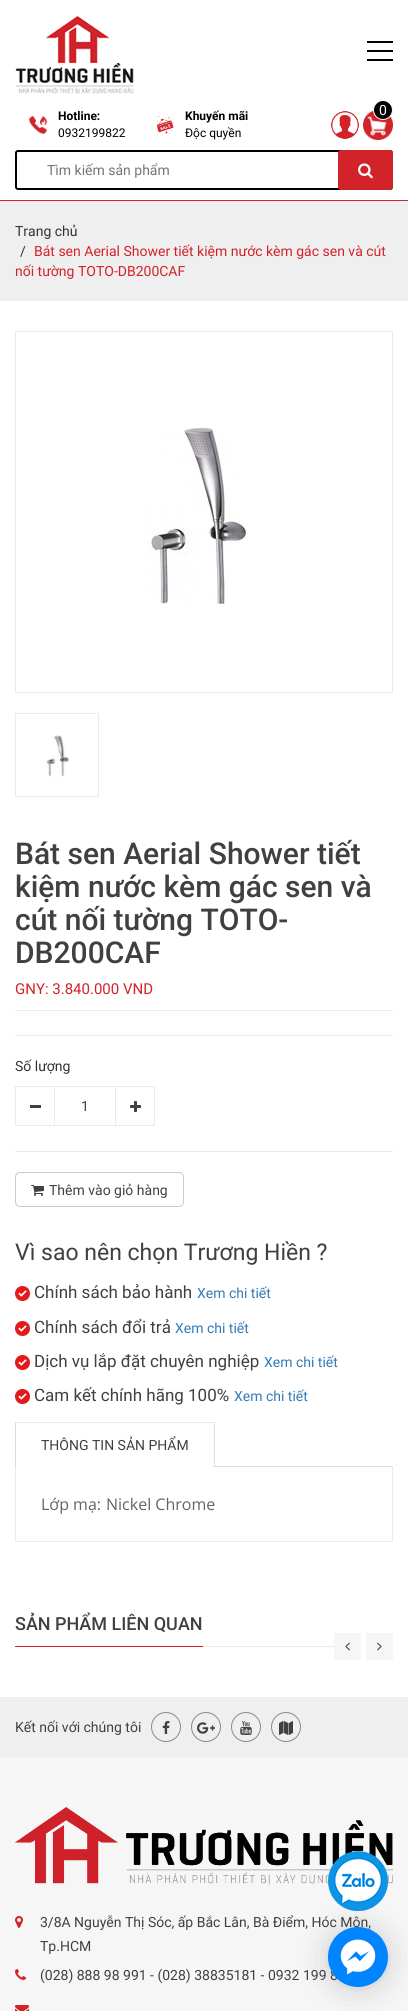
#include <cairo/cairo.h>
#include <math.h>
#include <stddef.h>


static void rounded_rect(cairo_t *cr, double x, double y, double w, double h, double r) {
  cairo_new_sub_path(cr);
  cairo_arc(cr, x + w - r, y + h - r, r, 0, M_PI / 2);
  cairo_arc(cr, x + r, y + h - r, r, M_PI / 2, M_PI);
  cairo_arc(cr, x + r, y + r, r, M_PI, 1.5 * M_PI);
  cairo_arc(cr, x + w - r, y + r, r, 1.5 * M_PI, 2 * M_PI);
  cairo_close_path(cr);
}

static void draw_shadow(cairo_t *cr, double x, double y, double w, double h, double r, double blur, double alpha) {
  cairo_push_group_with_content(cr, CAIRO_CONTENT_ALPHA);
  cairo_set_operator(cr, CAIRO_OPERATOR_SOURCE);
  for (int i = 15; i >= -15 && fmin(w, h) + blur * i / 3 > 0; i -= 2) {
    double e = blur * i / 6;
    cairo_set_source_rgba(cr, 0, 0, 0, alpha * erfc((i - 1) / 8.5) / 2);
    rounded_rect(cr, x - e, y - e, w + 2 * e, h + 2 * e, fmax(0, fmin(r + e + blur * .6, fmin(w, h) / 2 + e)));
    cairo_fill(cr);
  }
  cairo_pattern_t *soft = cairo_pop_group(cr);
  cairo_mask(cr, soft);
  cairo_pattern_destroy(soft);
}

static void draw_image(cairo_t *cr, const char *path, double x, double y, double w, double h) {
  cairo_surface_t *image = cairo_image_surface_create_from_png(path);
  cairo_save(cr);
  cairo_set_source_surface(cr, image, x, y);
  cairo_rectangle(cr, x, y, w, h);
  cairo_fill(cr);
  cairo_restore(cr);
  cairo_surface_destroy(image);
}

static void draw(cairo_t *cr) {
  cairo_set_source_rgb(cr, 1, 1, 1);
  cairo_paint(cr);
  draw_image(cr, "images/1.png", 15, 15, 119, 79);
  draw_image(cr, "images/2.png", 367, 41, 26, 20);
  draw_image(cr, "images/3.png", 28, 115, 20, 20);
  draw_image(cr, "images/4.png", 156, 116, 18, 18);
  draw_image(cr, "images/5.png", 331, 111, 28, 28);
  draw_image(cr, "images/6.png", 363, 110, 30, 30);
  cairo_set_source_rgb(cr, 0, 0, 0);
  cairo_arc(cr, 383, 110, 9.5, 0, 2 * M_PI);
  cairo_fill_preserve(cr);
  cairo_set_source_rgb(cr, 1, 1, 1);
  cairo_set_line_width(cr, 1);
  cairo_stroke(cr);
  rounded_rect(cr, 16, 151, 376, 38, 2);
  cairo_set_source_rgb(cr, 0, 0, 0);
  cairo_set_line_width(cr, 2);
  cairo_stroke(cr);
  cairo_set_source_rgb(cr, 210 / 255.0, 35 / 255.0, 42 / 255.0);
  rounded_rect(cr, 338, 150, 55, 40, 3);
  cairo_fill(cr);
  draw_image(cr, "images/7.png", 358, 163, 15, 16);
  cairo_rectangle(cr, 0, 200, 408, 1);
  cairo_fill(cr);
  cairo_set_source_rgb(cr, 239 / 255.0, 239 / 255.0, 239 / 255.0);
  cairo_rectangle(cr, 0, 201, 408, 100);
  cairo_fill(cr);
  cairo_rectangle(cr, 15.5, 331.5, 377, 361);
  cairo_set_source_rgb(cr, 235 / 255.0, 235 / 255.0, 235 / 255.0);
  cairo_set_line_width(cr, 1);
  cairo_stroke(cr);
  draw_image(cr, "images/8.png", 144, 427, 104, 177);
  cairo_rectangle(cr, 15.5, 713.5, 83, 83);
  cairo_stroke(cr);
  draw_image(cr, "images/9.png", 46, 735, 23, 42);
  cairo_rectangle(cr, 15, 1010, 378, 1);
  cairo_fill(cr);
  cairo_rectangle(cr, 15, 1035, 378, 1);
  cairo_fill(cr);
  cairo_rectangle(cr, 15, 1151, 378, 1);
  cairo_fill(cr);
  cairo_rectangle(cr, 15.5, 1086.5, 39, 39);
  cairo_stroke(cr);
  cairo_set_source_rgb(cr, 64 / 255.0, 64 / 255.0, 64 / 255.0);
  cairo_rectangle(cr, 30, 1105, 11, 3);
  cairo_fill(cr);
  cairo_set_source_rgb(cr, 235 / 255.0, 235 / 255.0, 235 / 255.0);
  cairo_rectangle(cr, 55, 1086, 60, 1);
  cairo_fill(cr);
  cairo_rectangle(cr, 55, 1125, 60, 1);
  cairo_fill(cr);
  cairo_rectangle(cr, 115.5, 1086.5, 39, 39);
  cairo_stroke(cr);
  draw_image(cr, "images/10.png", 130, 1101, 11, 11);
  rounded_rect(cr, 15.5, 1172.5, 168, 34, 4.5);
  cairo_set_source_rgb(cr, 203 / 255.0, 203 / 255.0, 203 / 255.0);
  cairo_stroke(cr);
  draw_image(cr, "images/11.png", 31, 1185, 13, 11);
  draw_image(cr, "images/12.png", 15, 1286, 15, 15);
  draw_image(cr, "images/12.png", 15, 1321, 15, 15);
  draw_image(cr, "images/12.png", 15, 1355, 15, 15);
  draw_image(cr, "images/12.png", 15, 1389, 15, 15);
  cairo_set_source_rgb(cr, 221 / 255.0, 221 / 255.0, 221 / 255.0);
  cairo_rectangle(cr, 215, 1466, 178, 1);
  cairo_fill(cr);
  cairo_set_source_rgb(cr, 235 / 255.0, 235 / 255.0, 235 / 255.0);
  cairo_rectangle(cr, 15, 1422, 200, 1);
  cairo_fill(cr);
  cairo_set_source_rgb(cr, 221 / 255.0, 221 / 255.0, 221 / 255.0);
  cairo_rectangle(cr, 214, 1422, 1, 45);
  cairo_fill(cr);
  cairo_rectangle(cr, 15, 1422, 1, 45);
  cairo_fill(cr);
  cairo_set_source_rgb(cr, 235 / 255.0, 235 / 255.0, 235 / 255.0);
  cairo_rectangle(cr, 392, 1467, 1, 75);
  cairo_fill(cr);
  cairo_rectangle(cr, 15, 1541, 378, 1);
  cairo_fill(cr);
  cairo_rectangle(cr, 15, 1467, 1, 75);
  cairo_fill(cr);
  cairo_rectangle(cr, 203, 1646, 131, 1);
  cairo_fill(cr);
  cairo_set_source_rgb(cr, 210 / 255.0, 35 / 255.0, 42 / 255.0);
  cairo_rectangle(cr, 15, 1646, 188, 1);
  cairo_fill(cr);
  cairo_set_source_rgb(cr, 246 / 255.0, 246 / 255.0, 246 / 255.0);
  cairo_rectangle(cr, 334, 1633, 27, 27);
  cairo_fill(cr);
  draw_image(cr, "images/13.png", 345, 1642, 5, 9);
  cairo_rectangle(cr, 366, 1633, 27, 27);
  cairo_fill(cr);
  draw_image(cr, "images/14.png", 377, 1642, 5, 9);
  cairo_set_source_rgb(cr, 239 / 255.0, 239 / 255.0, 239 / 255.0);
  cairo_rectangle(cr, 0, 1697, 408, 60);
  cairo_fill(cr);
  cairo_arc(cr, 166, 1727, 14.5, 0, 2 * M_PI);
  cairo_set_source_rgb(cr, 137 / 255.0, 137 / 255.0, 137 / 255.0);
  cairo_stroke(cr);
  draw_image(cr, "images/15.png", 162, 1721, 8, 13);
  cairo_arc(cr, 206, 1727, 14.5, 0, 2 * M_PI);
  cairo_stroke(cr);
  draw_image(cr, "images/16.png", 197, 1722, 18, 12);
  cairo_arc(cr, 246, 1727, 14.5, 0, 2 * M_PI);
  cairo_stroke(cr);
  draw_image(cr, "images/17.png", 240, 1721, 12, 14);
  cairo_arc(cr, 286, 1727, 14.5, 0, 2 * M_PI);
  cairo_stroke(cr);
  draw_image(cr, "images/18.png", 279, 1721, 14, 14);
  cairo_set_source_rgb(cr, 246 / 255.0, 246 / 255.0, 246 / 255.0);
  cairo_rectangle(cr, 0, 1757, 408, 254);
  cairo_fill(cr);
  draw_image(cr, "images/19.png", 15, 1807, 378, 78);
  draw_image(cr, "images/20.png", 15, 1916, 8, 12);
  draw_image(cr, "images/21.png", 15, 1969, 11, 11);
  draw_image(cr, "images/22.png", 15, 2005, 14, 6);
  cairo_set_source_rgb(cr, 0, 0, 0);
  draw_shadow(cr, 328, 1929, 60, 60, 30, 16, 0.16);
  draw_image(cr, "images/23.png", 328, 1851, 60, 60);
  draw_shadow(cr, 328, 1928, 60, 60, 30, 3, 0.06);
  cairo_select_font_face(cr, "Roboto", CAIRO_FONT_SLANT_NORMAL, CAIRO_FONT_WEIGHT_BOLD);
  cairo_set_font_size(cr, 12);
  cairo_set_source_rgb(cr, 0, 0, 0);
  cairo_move_to(cr, 58, 120);
  cairo_show_text(cr, "Hotline:");
  cairo_select_font_face(cr, "Roboto", CAIRO_FONT_SLANT_NORMAL, CAIRO_FONT_WEIGHT_NORMAL);
  cairo_move_to(cr, 58, 137);
  cairo_show_text(cr, "0932199822");
  cairo_select_font_face(cr, "Roboto", CAIRO_FONT_SLANT_NORMAL, CAIRO_FONT_WEIGHT_BOLD);
  cairo_move_to(cr, 185, 120);
  cairo_show_text(cr, "Khuyến mãi");
  cairo_select_font_face(cr, "Roboto", CAIRO_FONT_SLANT_NORMAL, CAIRO_FONT_WEIGHT_NORMAL);
  cairo_move_to(cr, 185, 137);
  cairo_show_text(cr, "Độc quyền");
  cairo_set_font_size(cr, 14);
  cairo_set_source_rgb(cr, 1, 1, 1);
  cairo_move_to(cr, 379, 115);
  cairo_show_text(cr, "0");
  cairo_set_source_rgb(cr, 117 / 255.0, 117 / 255.0, 117 / 255.0);
  cairo_move_to(cr, 47, 175);
  cairo_show_text(cr, "Tìm kiếm sản phẩm");
  cairo_set_source_rgb(cr, 51 / 255.0, 51 / 255.0, 51 / 255.0);
  cairo_move_to(cr, 15, 236);
  cairo_show_text(cr, "Trang chủ");
  cairo_move_to(cr, 20, 256);
  cairo_show_text(cr, "/");
  cairo_set_source_rgb(cr, 210 / 255.0, 35 / 255.0, 42 / 255.0);
  cairo_move_to(cr, 34, 256);
  cairo_show_text(cr, "Bát sen Aerial Shower tiết kiệm nước kèm gác sen và cút");
  cairo_move_to(cr, 15, 276);
  cairo_show_text(cr, "nối tường TOTO-DB200CAF");
  cairo_select_font_face(cr, "Roboto Medium", CAIRO_FONT_SLANT_NORMAL, CAIRO_FONT_WEIGHT_NORMAL);
  cairo_set_font_size(cr, 30);
  cairo_set_source_rgb(cr, 64 / 255.0, 64 / 255.0, 64 / 255.0);
  cairo_move_to(cr, 15, 864);
  cairo_show_text(cr, "Bát sen Aerial Shower tiết");
  cairo_move_to(cr, 15, 897);
  cairo_show_text(cr, "kiệm nước kèm gác sen và");
  cairo_move_to(cr, 15, 930);
  cairo_show_text(cr, "cút nối tường TOTO-");
  cairo_move_to(cr, 15, 963);
  cairo_show_text(cr, "DB200CAF");
  cairo_select_font_face(cr, "Roboto", CAIRO_FONT_SLANT_NORMAL, CAIRO_FONT_WEIGHT_NORMAL);
  cairo_set_font_size(cr, 15);
  cairo_set_source_rgb(cr, 210 / 255.0, 35 / 255.0, 42 / 255.0);
  cairo_move_to(cr, 15, 994);
  cairo_show_text(cr, "GNY: 3.840.000 VND");
  cairo_set_font_size(cr, 14);
  cairo_set_source_rgb(cr, 51 / 255.0, 51 / 255.0, 51 / 255.0);
  cairo_move_to(cr, 15, 1071);
  cairo_show_text(cr, "Số lượng");
  cairo_set_source_rgb(cr, 64 / 255.0, 64 / 255.0, 64 / 255.0);
  cairo_move_to(cr, 81, 1111);
  cairo_show_text(cr, "1");
  cairo_move_to(cr, 49, 1195);
  cairo_show_text(cr, "Thêm vào giỏ hàng");
  cairo_set_font_size(cr, 23);
  cairo_move_to(cr, 15, 1260);
  cairo_show_text(cr, "Vì sao nên chọn Trương Hiền ?");
  cairo_set_font_size(cr, 17);
  cairo_move_to(cr, 34, 1298);
  cairo_show_text(cr, "Chính sách bảo hành");
  cairo_set_font_size(cr, 14);
  cairo_set_source_rgb(cr, 51 / 255.0, 122 / 255.0, 183 / 255.0);
  cairo_move_to(cr, 197, 1298);
  cairo_show_text(cr, "Xem chi tiết");
  cairo_set_font_size(cr, 17);
  cairo_set_source_rgb(cr, 64 / 255.0, 64 / 255.0, 64 / 255.0);
  cairo_move_to(cr, 34, 1333);
  cairo_show_text(cr, "Chính sách đổi trả");
  cairo_set_font_size(cr, 14);
  cairo_set_source_rgb(cr, 51 / 255.0, 122 / 255.0, 183 / 255.0);
  cairo_move_to(cr, 175, 1333);
  cairo_show_text(cr, "Xem chi tiết");
  cairo_set_font_size(cr, 17);
  cairo_set_source_rgb(cr, 64 / 255.0, 64 / 255.0, 64 / 255.0);
  cairo_move_to(cr, 34, 1367);
  cairo_show_text(cr, "Dịch vụ lắp đặt chuyên nghiệp");
  cairo_set_font_size(cr, 14);
  cairo_set_source_rgb(cr, 51 / 255.0, 122 / 255.0, 183 / 255.0);
  cairo_move_to(cr, 264, 1367);
  cairo_show_text(cr, "Xem chi tiết");
  cairo_set_font_size(cr, 17);
  cairo_set_source_rgb(cr, 64 / 255.0, 64 / 255.0, 64 / 255.0);
  cairo_move_to(cr, 34, 1401);
  cairo_show_text(cr, "Cam kết chính hãng 100%");
  cairo_set_font_size(cr, 14);
  cairo_set_source_rgb(cr, 51 / 255.0, 122 / 255.0, 183 / 255.0);
  cairo_move_to(cr, 234, 1401);
  cairo_show_text(cr, "Xem chi tiết");
  cairo_set_source_rgb(cr, 64 / 255.0, 64 / 255.0, 64 / 255.0);
  cairo_move_to(cr, 41, 1450);
  cairo_show_text(cr, "THÔNG TIN SẢN PHẨM");
  cairo_select_font_face(cr, "Open Sans", CAIRO_FONT_SLANT_NORMAL, CAIRO_FONT_WEIGHT_NORMAL);
  cairo_set_font_size(cr, 16);
  cairo_set_source_rgb(cr, 99 / 255.0, 99 / 255.0, 99 / 255.0);
  cairo_move_to(cr, 41, 1510);
  cairo_show_text(cr, "Lớp mạ:");
  cairo_move_to(cr, 106, 1510);
  cairo_show_text(cr, "Nickel Chrome");
  cairo_select_font_face(cr, "Roboto Medium", CAIRO_FONT_SLANT_NORMAL, CAIRO_FONT_WEIGHT_NORMAL);
  cairo_set_font_size(cr, 18);
  cairo_set_source_rgb(cr, 64 / 255.0, 64 / 255.0, 64 / 255.0);
  cairo_move_to(cr, 15, 1630);
  cairo_show_text(cr, "SẢN PHẨM LIÊN QUAN");
  cairo_select_font_face(cr, "Roboto", CAIRO_FONT_SLANT_NORMAL, CAIRO_FONT_WEIGHT_NORMAL);
  cairo_set_font_size(cr, 14);
  cairo_move_to(cr, 15, 1732);
  cairo_show_text(cr, "Kết nối với chúng tôi");
  cairo_move_to(cr, 40, 1927);
  cairo_show_text(cr, "3/8A Nguyễn Thị Sóc, ấp Bắc Lân, Bà Điểm, Hóc Môn,");
  cairo_move_to(cr, 40, 1951);
  cairo_show_text(cr, "Tp.HCM");
  cairo_move_to(cr, 40, 1980);
  cairo_show_text(cr, "(028) 888 98 991 - (028) 38835181 - 0932 199 8");
  cairo_set_source_rgb(cr, 0, 132 / 255.0, 1);
  cairo_new_path(cr);
  cairo_arc(cr, 358, 1957, 30, 0, 2 * M_PI);
  cairo_fill(cr);
  draw_image(cr, "images/24.png", 334, 1933, 48, 48);
}

int main(void) {
  cairo_surface_t *surface = cairo_image_surface_create(CAIRO_FORMAT_RGB24, 408, 2011);
  cairo_t *cr = cairo_create(surface);
  cairo_font_options_t *options = cairo_font_options_create();
  cairo_font_options_set_hint_metrics(options, CAIRO_HINT_METRICS_OFF);
  cairo_font_options_set_hint_style(options, CAIRO_HINT_STYLE_NONE);
  cairo_set_font_options(cr, options);
  cairo_set_miter_limit(cr, 4);
  draw(cr);
  cairo_surface_write_to_png(surface, "out.png");
  cairo_font_options_destroy(options);
  cairo_destroy(cr);
  cairo_surface_destroy(surface);
  return 0;
}
